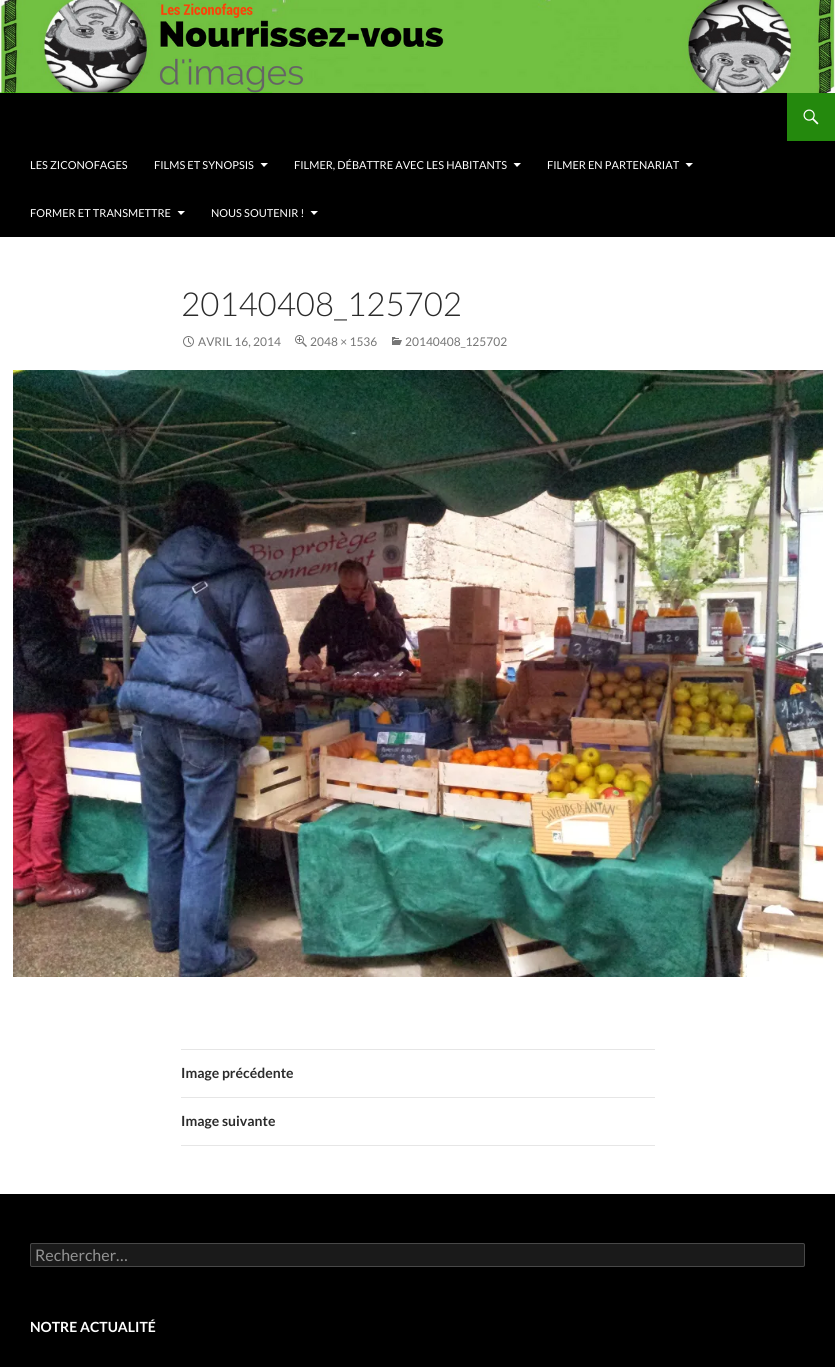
#include <cairo/cairo.h>
#include <math.h>
#include <stddef.h>


static void rounded_rect(cairo_t *cr, double x, double y, double w, double h, double r) {
  cairo_new_sub_path(cr);
  cairo_arc(cr, x + w - r, y + h - r, r, 0, M_PI / 2);
  cairo_arc(cr, x + r, y + h - r, r, M_PI / 2, M_PI);
  cairo_arc(cr, x + r, y + r, r, M_PI, 1.5 * M_PI);
  cairo_arc(cr, x + w - r, y + r, r, 1.5 * M_PI, 2 * M_PI);
  cairo_close_path(cr);
}

static void draw_image(cairo_t *cr, const char *path, double x, double y, double w, double h) {
  cairo_surface_t *image = cairo_image_surface_create_from_png(path);
  cairo_save(cr);
  cairo_set_source_surface(cr, image, x, y);
  cairo_rectangle(cr, x, y, w, h);
  cairo_fill(cr);
  cairo_restore(cr);
  cairo_surface_destroy(image);
}

static void draw(cairo_t *cr) {
  cairo_set_source_rgb(cr, 1, 1, 1);
  cairo_paint(cr);
  draw_image(cr, "images/1.png", 0, 0, 835, 93);
  cairo_set_source_rgb(cr, 0, 0, 0);
  cairo_rectangle(cr, 0, 93, 835, 144);
  cairo_fill(cr);
  cairo_set_source_rgb(cr, 36 / 255.0, 137 / 255.0, 13 / 255.0);
  cairo_rectangle(cr, 787, 93, 48, 48);
  cairo_fill(cr);
  draw_image(cr, "images/2.png", 803, 109, 16, 16);
  cairo_set_source_rgb(cr, 1, 1, 1);
  cairo_new_path(cr);
  cairo_move_to(cr, 260.5, 163);
  cairo_line_to(cr, 268, 163);
  cairo_line_to(cr, 264, 167);
  cairo_close_path(cr);
  cairo_fill(cr);
  cairo_new_path(cr);
  cairo_move_to(cr, 513.5, 163);
  cairo_line_to(cr, 521, 163);
  cairo_line_to(cr, 517, 167);
  cairo_close_path(cr);
  cairo_fill(cr);
  cairo_new_path(cr);
  cairo_move_to(cr, 685.5, 163);
  cairo_line_to(cr, 693, 163);
  cairo_line_to(cr, 689, 167);
  cairo_close_path(cr);
  cairo_fill(cr);
  cairo_new_path(cr);
  cairo_move_to(cr, 177.5, 211);
  cairo_line_to(cr, 185, 211);
  cairo_line_to(cr, 181, 215);
  cairo_close_path(cr);
  cairo_fill(cr);
  cairo_new_path(cr);
  cairo_move_to(cr, 310.5, 211);
  cairo_line_to(cr, 318, 211);
  cairo_line_to(cr, 314, 215);
  cairo_close_path(cr);
  cairo_fill(cr);
  draw_image(cr, "images/3.png", 183, 336, 11, 11);
  draw_image(cr, "images/4.png", 295, 335, 12, 12);
  draw_image(cr, "images/5.png", 392, 337, 10, 8);
  draw_image(cr, "images/6.png", 13, 370, 810, 607);
  cairo_set_source_rgb(cr, 230 / 255.0, 230 / 255.0, 230 / 255.0);
  cairo_rectangle(cr, 181, 1049, 474, 1);
  cairo_fill(cr);
  cairo_rectangle(cr, 181, 1097, 474, 1);
  cairo_fill(cr);
  cairo_rectangle(cr, 181, 1145, 474, 1);
  cairo_fill(cr);
  cairo_set_source_rgb(cr, 0, 0, 0);
  cairo_rectangle(cr, 0, 1194, 835, 173);
  cairo_fill(cr);
  cairo_set_source_rgb(cr, 26 / 255.0, 26 / 255.0, 26 / 255.0);
  rounded_rect(cr, 30, 1243, 775, 24, 2);
  cairo_fill(cr);
  rounded_rect(cr, 30.5, 1243.5, 774, 23, 1.5);
  cairo_set_source_rgba(cr, 1, 1, 1, 0.2);
  cairo_set_line_width(cr, 1);
  cairo_stroke(cr);
  cairo_select_font_face(cr, "Lato", CAIRO_FONT_SLANT_NORMAL, CAIRO_FONT_WEIGHT_NORMAL);
  cairo_set_font_size(cr, 11);
  cairo_set_source_rgb(cr, 1, 1, 1);
  cairo_move_to(cr, 30, 169);
  cairo_show_text(cr, "LES ZICONOFAGES");
  cairo_move_to(cr, 154, 169);
  cairo_show_text(cr, "FILMS ET SYNOPSIS");
  cairo_move_to(cr, 294, 169);
  cairo_show_text(cr, "FILMER, DÉBATTRE AVEC LES HABITANTS");
  cairo_move_to(cr, 547, 169);
  cairo_show_text(cr, "FILMER EN PARTENARIAT");
  cairo_move_to(cr, 30, 217);
  cairo_show_text(cr, "FORMER ET TRANSMETTRE");
  cairo_move_to(cr, 211, 217);
  cairo_show_text(cr, "NOUS SOUTENIR !");
  cairo_select_font_face(cr, "Lato Light", CAIRO_FONT_SLANT_NORMAL, CAIRO_FONT_WEIGHT_NORMAL);
  cairo_set_font_size(cr, 33);
  cairo_set_source_rgb(cr, 43 / 255.0, 43 / 255.0, 43 / 255.0);
  cairo_move_to(cr, 181, 316);
  cairo_show_text(cr, "20140408_125702");
  cairo_select_font_face(cr, "Lato", CAIRO_FONT_SLANT_NORMAL, CAIRO_FONT_WEIGHT_NORMAL);
  cairo_set_font_size(cr, 12);
  cairo_set_source_rgb(cr, 118 / 255.0, 118 / 255.0, 118 / 255.0);
  cairo_move_to(cr, 198, 346);
  cairo_show_text(cr, "AVRIL 16, 2014");
  cairo_move_to(cr, 310, 346);
  cairo_show_text(cr, "2048 × 1536");
  cairo_move_to(cr, 405, 346);
  cairo_show_text(cr, "20140408_125702");
  cairo_select_font_face(cr, "Lato", CAIRO_FONT_SLANT_NORMAL, CAIRO_FONT_WEIGHT_BOLD);
  cairo_set_font_size(cr, 14);
  cairo_set_source_rgb(cr, 43 / 255.0, 43 / 255.0, 43 / 255.0);
  cairo_move_to(cr, 181, 1078);
  cairo_show_text(cr, "Image précédente");
  cairo_move_to(cr, 181, 1126);
  cairo_show_text(cr, "Image suivante");
  cairo_select_font_face(cr, "Lato", CAIRO_FONT_SLANT_NORMAL, CAIRO_FONT_WEIGHT_NORMAL);
  cairo_set_font_size(cr, 16);
  cairo_set_source_rgb(cr, 147 / 255.0, 147 / 255.0, 147 / 255.0);
  cairo_move_to(cr, 35, 1261);
  cairo_show_text(cr, "Rechercher…");
  cairo_select_font_face(cr, "Lato", CAIRO_FONT_SLANT_NORMAL, CAIRO_FONT_WEIGHT_BOLD);
  cairo_set_font_size(cr, 14);
  cairo_set_source_rgb(cr, 1, 1, 1);
  cairo_move_to(cr, 30, 1332);
  cairo_show_text(cr, "NOTRE ACTUALITÉ");
}

int main(void) {
  cairo_surface_t *surface = cairo_image_surface_create(CAIRO_FORMAT_RGB24, 835, 1367);
  cairo_t *cr = cairo_create(surface);
  cairo_font_options_t *options = cairo_font_options_create();
  cairo_font_options_set_hint_metrics(options, CAIRO_HINT_METRICS_OFF);
  cairo_font_options_set_hint_style(options, CAIRO_HINT_STYLE_NONE);
  cairo_set_font_options(cr, options);
  cairo_set_miter_limit(cr, 4);
  draw(cr);
  cairo_surface_write_to_png(surface, "out.png");
  cairo_font_options_destroy(options);
  cairo_destroy(cr);
  cairo_surface_destroy(surface);
  return 0;
}
